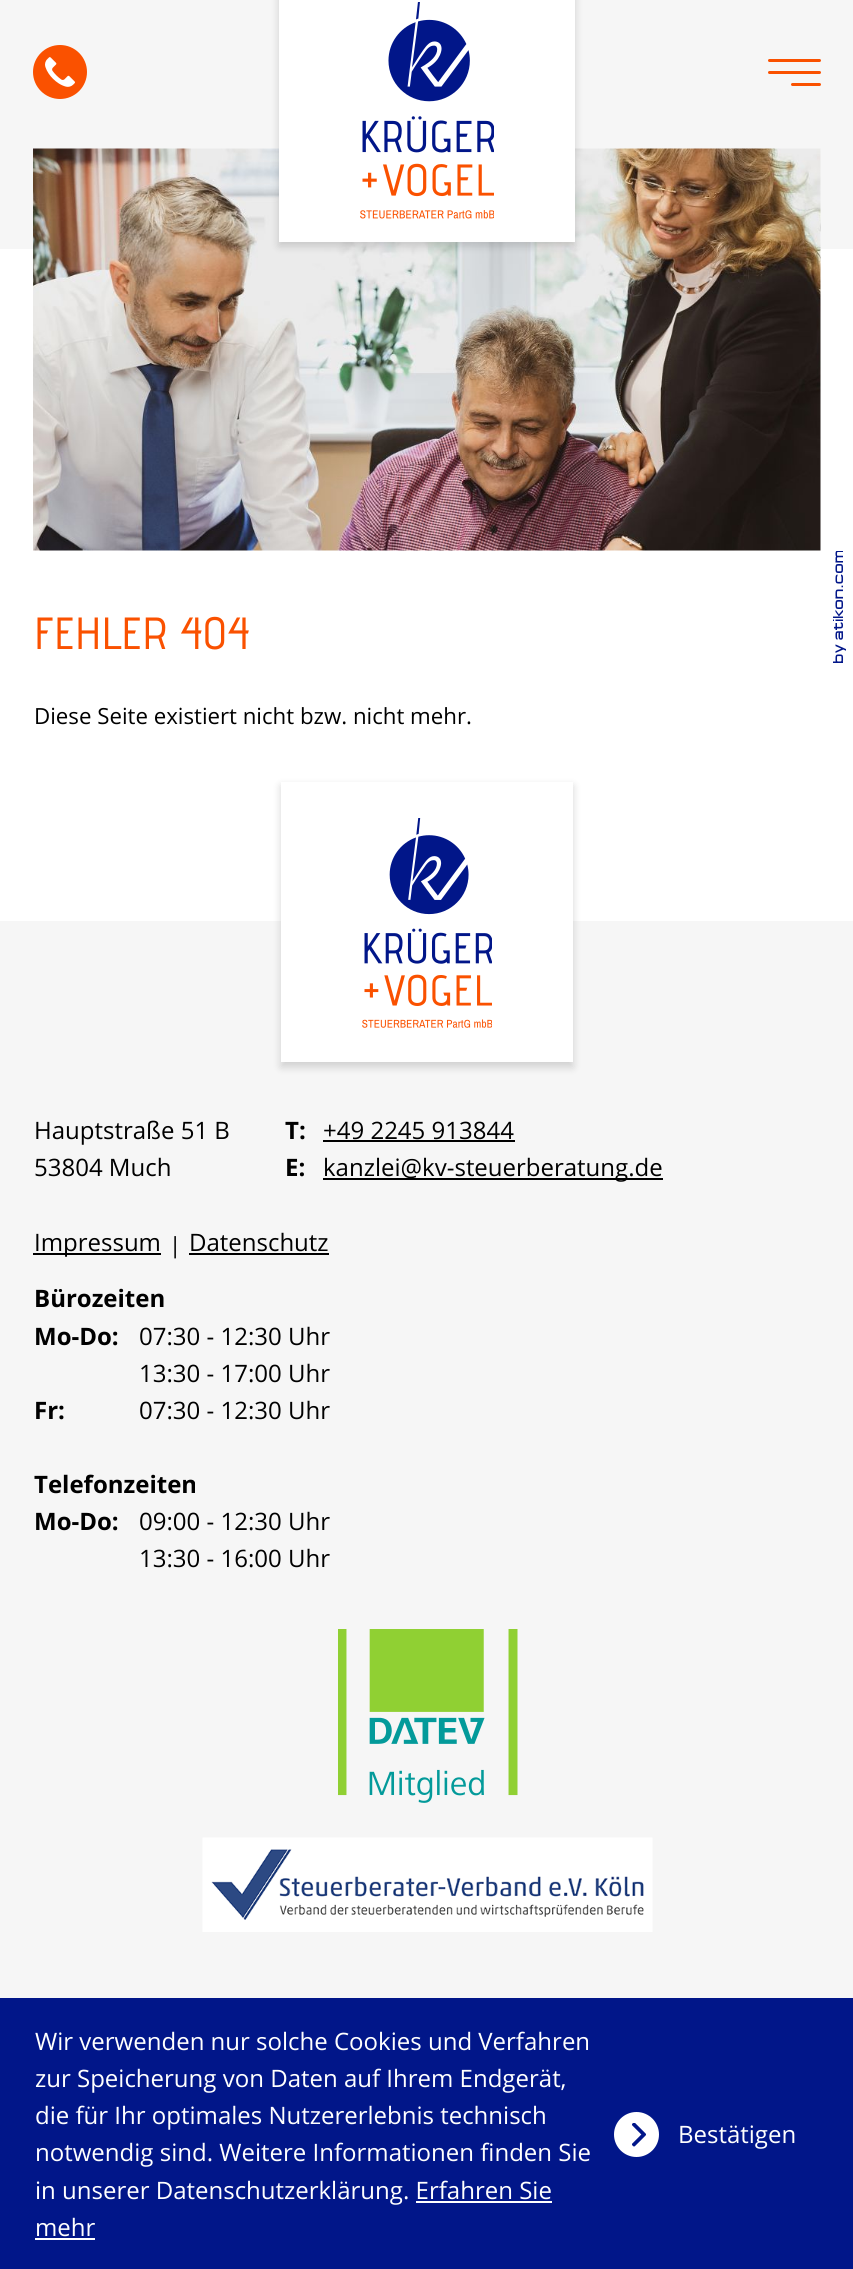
#include <cairo/cairo.h>
#include <math.h>
#include <stddef.h>


static void rounded_rect(cairo_t *cr, double x, double y, double w, double h, double r) {
  cairo_new_sub_path(cr);
  cairo_arc(cr, x + w - r, y + h - r, r, 0, M_PI / 2);
  cairo_arc(cr, x + r, y + h - r, r, M_PI / 2, M_PI);
  cairo_arc(cr, x + r, y + r, r, M_PI, 1.5 * M_PI);
  cairo_arc(cr, x + w - r, y + r, r, 1.5 * M_PI, 2 * M_PI);
  cairo_close_path(cr);
}

static void draw_shadow(cairo_t *cr, double x, double y, double w, double h, double r, double blur, double alpha) {
  cairo_push_group_with_content(cr, CAIRO_CONTENT_ALPHA);
  cairo_set_operator(cr, CAIRO_OPERATOR_SOURCE);
  for (int i = 15; i >= -15 && fmin(w, h) + blur * i / 3 > 0; i -= 2) {
    double e = blur * i / 6;
    cairo_set_source_rgba(cr, 0, 0, 0, alpha * erfc((i - 1) / 8.5) / 2);
    rounded_rect(cr, x - e, y - e, w + 2 * e, h + 2 * e, fmax(0, fmin(r + e + blur * .6, fmin(w, h) / 2 + e)));
    cairo_fill(cr);
  }
  cairo_pattern_t *soft = cairo_pop_group(cr);
  cairo_mask(cr, soft);
  cairo_pattern_destroy(soft);
}

static void draw_image(cairo_t *cr, const char *path, double x, double y, double w, double h) {
  cairo_surface_t *image = cairo_image_surface_create_from_png(path);
  cairo_save(cr);
  cairo_set_source_surface(cr, image, x, y);
  cairo_rectangle(cr, x, y, w, h);
  cairo_fill(cr);
  cairo_restore(cr);
  cairo_surface_destroy(image);
}

static void draw(cairo_t *cr) {
  cairo_set_source_rgb(cr, 1, 1, 1);
  cairo_paint(cr);
  cairo_set_source_rgb(cr, 246 / 255.0, 246 / 255.0, 246 / 255.0);
  cairo_rectangle(cr, 0, 0, 853, 249);
  cairo_fill(cr);
  draw_image(cr, "images/3.png", 33, 148, 788, 403);
  cairo_set_source_rgb(cr, 0, 0, 0);
  draw_shadow(cr, 279, -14, 296, 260, 0, 4.5, 0.16);
  cairo_set_source_rgb(cr, 1, 1, 1);
  cairo_rectangle(cr, 279, 0, 296, 242);
  cairo_fill(cr);
  draw_image(cr, "images/1.png", 360, 2, 134, 217);
  cairo_set_source_rgb(cr, 250 / 255.0, 81 / 255.0, 0);
  cairo_arc(cr, 60, 72, 27, 0, 2 * M_PI);
  cairo_fill(cr);
  draw_image(cr, "images/2.png", 45, 57, 30, 30);
  rounded_rect(cr, 768, 59, 53, 3, 1.5);
  cairo_fill(cr);
  rounded_rect(cr, 768, 71, 53, 3, 1.5);
  cairo_fill(cr);
  rounded_rect(cr, 791, 83, 30, 3, 1.5);
  cairo_fill(cr);
  draw_image(cr, "images/4.png", 833, 551, 13, 112);
  cairo_set_source_rgb(cr, 246 / 255.0, 246 / 255.0, 246 / 255.0);
  cairo_rectangle(cr, 0, 921, 853, 1077);
  cairo_fill(cr);
  cairo_set_source_rgb(cr, 0, 0, 0);
  draw_shadow(cr, 281, 786, 292, 281, 0, 4.5, 0.16);
  cairo_set_source_rgb(cr, 1, 1, 1);
  cairo_rectangle(cr, 281, 782, 292, 280);
  cairo_fill(cr);
  draw_image(cr, "images/5.png", 362, 818, 130, 210);
  cairo_set_source_rgb(cr, 0, 0, 0);
  cairo_rectangle(cr, 323, 1140, 192, 2);
  cairo_fill(cr);
  cairo_rectangle(cr, 323, 1178, 340, 2);
  cairo_fill(cr);
  cairo_rectangle(cr, 33, 1253, 128, 2);
  cairo_fill(cr);
  cairo_rectangle(cr, 189, 1253, 140, 2);
  cairo_fill(cr);
  draw_image(cr, "images/6.png", 338, 1629, 180, 174);
  draw_image(cr, "images/7.png", 202, 1837, 451, 95);
  cairo_set_source_rgb(cr, 1 / 255.0, 22 / 255.0, 137 / 255.0);
  cairo_rectangle(cr, 0, 1998, 853, 271);
  cairo_fill(cr);
  cairo_set_source_rgb(cr, 1, 1, 1);
  cairo_rectangle(cr, 416, 2201, 136, 2);
  cairo_fill(cr);
  cairo_rectangle(cr, 35, 2238, 60, 2);
  cairo_fill(cr);
  cairo_arc(cr, 636.5, 2134.5, 22.5, 0, 2 * M_PI);
  cairo_fill(cr);
  draw_image(cr, "images/8.png", 632, 2123, 14, 24);
  cairo_select_font_face(cr, "Advent Pro Medium", CAIRO_FONT_SLANT_NORMAL, CAIRO_FONT_WEIGHT_NORMAL);
  cairo_set_font_size(cr, 45);
  cairo_set_source_rgb(cr, 250 / 255.0, 81 / 255.0, 0);
  cairo_move_to(cr, 34, 649);
  cairo_show_text(cr, "FEHLER 404");
  cairo_select_font_face(cr, "Open Sans", CAIRO_FONT_SLANT_NORMAL, CAIRO_FONT_WEIGHT_NORMAL);
  cairo_set_font_size(cr, 22.25);
  cairo_set_source_rgb(cr, 0, 0, 0);
  cairo_move_to(cr, 34, 724);
  cairo_show_text(cr, "Diese Seite existiert nicht bzw. nicht mehr.");
  cairo_set_font_size(cr, 24);
  cairo_move_to(cr, 34, 1139);
  cairo_show_text(cr, "Hauptstraße 51 B");
  cairo_move_to(cr, 34, 1176);
  cairo_show_text(cr, "53804 Much");
  cairo_select_font_face(cr, "Open Sans", CAIRO_FONT_SLANT_NORMAL, CAIRO_FONT_WEIGHT_BOLD);
  cairo_move_to(cr, 285, 1139);
  cairo_show_text(cr, "T:");
  cairo_select_font_face(cr, "Open Sans", CAIRO_FONT_SLANT_NORMAL, CAIRO_FONT_WEIGHT_NORMAL);
  cairo_move_to(cr, 323, 1139);
  cairo_show_text(cr, "+49 2245 913844");
  cairo_select_font_face(cr, "Open Sans", CAIRO_FONT_SLANT_NORMAL, CAIRO_FONT_WEIGHT_BOLD);
  cairo_move_to(cr, 285, 1176);
  cairo_show_text(cr, "E:");
  cairo_select_font_face(cr, "Open Sans", CAIRO_FONT_SLANT_NORMAL, CAIRO_FONT_WEIGHT_NORMAL);
  cairo_move_to(cr, 323, 1176);
  cairo_show_text(cr, "kanzlei@kv-steuerberatung.de");
  cairo_move_to(cr, 34, 1251);
  cairo_show_text(cr, "Impressum");
  cairo_set_font_size(cr, 22.25);
  cairo_move_to(cr, 169, 1253);
  cairo_show_text(cr, "|");
  cairo_set_font_size(cr, 24);
  cairo_move_to(cr, 189, 1251);
  cairo_show_text(cr, "Datenschutz");
  cairo_select_font_face(cr, "Open Sans", CAIRO_FONT_SLANT_NORMAL, CAIRO_FONT_WEIGHT_BOLD);
  cairo_move_to(cr, 34, 1307);
  cairo_show_text(cr, "Bürozeiten");
  cairo_move_to(cr, 34, 1345);
  cairo_show_text(cr, "Mo-Do:");
  cairo_select_font_face(cr, "Open Sans", CAIRO_FONT_SLANT_NORMAL, CAIRO_FONT_WEIGHT_NORMAL);
  cairo_move_to(cr, 139, 1345);
  cairo_show_text(cr, "07:30 - 12:30 Uhr");
  cairo_move_to(cr, 139, 1382);
  cairo_show_text(cr, "13:30 - 17:00 Uhr");
  cairo_select_font_face(cr, "Open Sans", CAIRO_FONT_SLANT_NORMAL, CAIRO_FONT_WEIGHT_BOLD);
  cairo_move_to(cr, 34, 1419);
  cairo_show_text(cr, "Fr:");
  cairo_select_font_face(cr, "Open Sans", CAIRO_FONT_SLANT_NORMAL, CAIRO_FONT_WEIGHT_NORMAL);
  cairo_move_to(cr, 139, 1419);
  cairo_show_text(cr, "07:30 - 12:30 Uhr");
  cairo_select_font_face(cr, "Open Sans", CAIRO_FONT_SLANT_NORMAL, CAIRO_FONT_WEIGHT_BOLD);
  cairo_move_to(cr, 34, 1493);
  cairo_show_text(cr, "Telefonzeiten");
  cairo_move_to(cr, 34, 1530);
  cairo_show_text(cr, "Mo-Do:");
  cairo_select_font_face(cr, "Open Sans", CAIRO_FONT_SLANT_NORMAL, CAIRO_FONT_WEIGHT_NORMAL);
  cairo_move_to(cr, 139, 1530);
  cairo_show_text(cr, "09:00 - 12:30 Uhr");
  cairo_move_to(cr, 139, 1567);
  cairo_show_text(cr, "13:30 - 16:00 Uhr");
  cairo_set_source_rgb(cr, 1, 1, 1);
  cairo_move_to(cr, 35, 2050);
  cairo_show_text(cr, "Wir verwenden nur solche Cookies und Verfahren");
  cairo_move_to(cr, 35, 2087);
  cairo_show_text(cr, "zur Speicherung von Daten auf Ihrem Endgerät,");
  cairo_move_to(cr, 35, 2124);
  cairo_show_text(cr, "die für Ihr optimales Nutzererlebnis technisch");
  cairo_move_to(cr, 35, 2161);
  cairo_show_text(cr, "notwendig sind. Weitere Informationen finden Sie");
  cairo_move_to(cr, 35, 2199);
  cairo_show_text(cr, "in unserer Datenschutzerklärung. Erfahren Sie");
  cairo_move_to(cr, 35, 2236);
  cairo_show_text(cr, "mehr");
  cairo_move_to(cr, 678, 2143);
  cairo_show_text(cr, "Bestätigen");
}

int main(void) {
  cairo_surface_t *surface = cairo_image_surface_create(CAIRO_FORMAT_RGB24, 853, 2269);
  cairo_t *cr = cairo_create(surface);
  cairo_font_options_t *options = cairo_font_options_create();
  cairo_font_options_set_hint_metrics(options, CAIRO_HINT_METRICS_OFF);
  cairo_font_options_set_hint_style(options, CAIRO_HINT_STYLE_NONE);
  cairo_set_font_options(cr, options);
  cairo_set_miter_limit(cr, 4);
  draw(cr);
  cairo_surface_write_to_png(surface, "out.png");
  cairo_font_options_destroy(options);
  cairo_destroy(cr);
  cairo_surface_destroy(surface);
  return 0;
}
